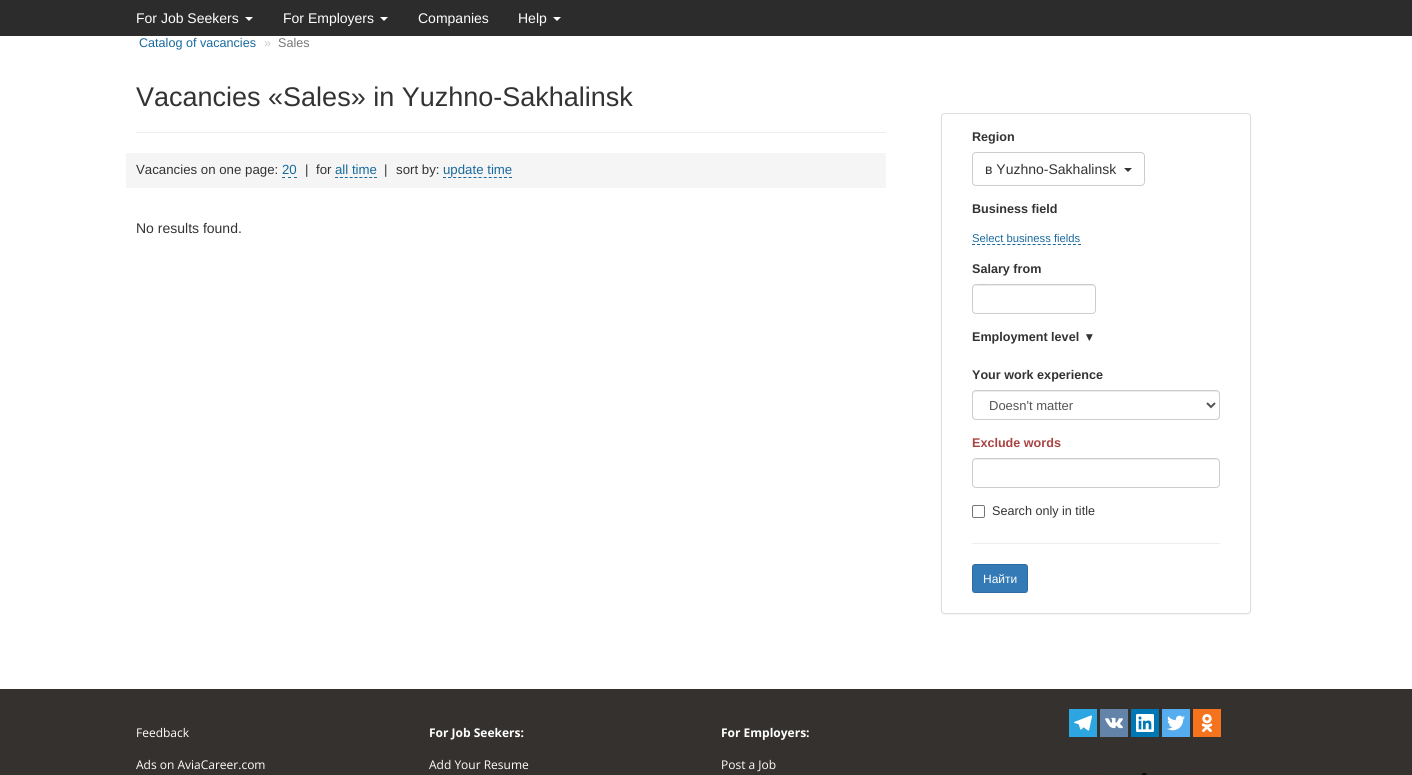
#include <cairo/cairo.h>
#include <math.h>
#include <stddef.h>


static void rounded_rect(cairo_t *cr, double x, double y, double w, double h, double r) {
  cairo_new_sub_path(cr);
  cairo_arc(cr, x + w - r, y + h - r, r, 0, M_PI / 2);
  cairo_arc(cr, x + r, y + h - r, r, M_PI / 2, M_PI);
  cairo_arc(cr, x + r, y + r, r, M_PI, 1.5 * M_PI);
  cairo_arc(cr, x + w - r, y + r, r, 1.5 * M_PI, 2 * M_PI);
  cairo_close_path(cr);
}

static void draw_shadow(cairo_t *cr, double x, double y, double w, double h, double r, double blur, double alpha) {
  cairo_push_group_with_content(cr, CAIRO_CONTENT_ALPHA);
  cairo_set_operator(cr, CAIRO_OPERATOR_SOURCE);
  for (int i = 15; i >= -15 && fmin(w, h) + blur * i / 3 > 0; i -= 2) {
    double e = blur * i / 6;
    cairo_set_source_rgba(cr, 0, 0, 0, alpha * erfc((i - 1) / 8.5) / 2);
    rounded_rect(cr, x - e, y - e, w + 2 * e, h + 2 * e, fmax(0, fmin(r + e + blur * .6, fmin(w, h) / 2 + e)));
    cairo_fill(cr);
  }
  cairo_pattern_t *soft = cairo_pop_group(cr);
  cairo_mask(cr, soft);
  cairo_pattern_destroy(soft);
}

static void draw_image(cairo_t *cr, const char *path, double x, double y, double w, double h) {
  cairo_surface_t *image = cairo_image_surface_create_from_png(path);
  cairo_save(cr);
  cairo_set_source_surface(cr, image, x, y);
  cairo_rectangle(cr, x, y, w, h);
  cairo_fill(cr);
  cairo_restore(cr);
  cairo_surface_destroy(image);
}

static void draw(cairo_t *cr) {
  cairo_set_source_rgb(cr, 1, 1, 1);
  cairo_paint(cr);
  cairo_set_source_rgb(cr, 44 / 255.0, 44 / 255.0, 44 / 255.0);
  cairo_rectangle(cr, 0, 0, 1412, 36);
  cairo_fill(cr);
  cairo_set_source_rgb(cr, 1, 1, 1);
  cairo_new_path(cr);
  cairo_move_to(cr, 245, 17);
  cairo_line_to(cr, 253, 17);
  cairo_line_to(cr, 249, 21);
  cairo_close_path(cr);
  cairo_fill(cr);
  cairo_new_path(cr);
  cairo_move_to(cr, 380, 17);
  cairo_line_to(cr, 388, 17);
  cairo_line_to(cr, 384, 21);
  cairo_close_path(cr);
  cairo_fill(cr);
  cairo_new_path(cr);
  cairo_move_to(cr, 553, 17);
  cairo_line_to(cr, 561, 17);
  cairo_line_to(cr, 557, 21);
  cairo_close_path(cr);
  cairo_fill(cr);
  cairo_set_source_rgb(cr, 238 / 255.0, 238 / 255.0, 238 / 255.0);
  cairo_rectangle(cr, 136, 132, 750, 1);
  cairo_fill(cr);
  cairo_set_source_rgb(cr, 245 / 255.0, 245 / 255.0, 245 / 255.0);
  cairo_rectangle(cr, 126, 153, 760, 35);
  cairo_fill(cr);
  cairo_new_path(cr);
  cairo_move_to(cr, 282, 177.5);
  cairo_line_to(cr, 285, 177.5);
  cairo_move_to(cr, 288, 177.5);
  cairo_line_to(cr, 291, 177.5);
  cairo_move_to(cr, 294, 177.5);
  cairo_line_to(cr, 297, 177.5);
  cairo_set_source_rgb(cr, 23 / 255.0, 105 / 255.0, 158 / 255.0);
  cairo_set_line_width(cr, 1);
  cairo_stroke(cr);
  cairo_new_path(cr);
  cairo_move_to(cr, 335, 177.5);
  cairo_line_to(cr, 377, 177.5);
  cairo_set_dash(cr, (double[]){3, 1.88}, 2, 0);
  cairo_stroke(cr);
  cairo_new_path(cr);
  cairo_move_to(cr, 443, 177.5);
  cairo_line_to(cr, 512, 177.5);
  cairo_set_dash(cr, (double[]){3, 2.08}, 2, 0);
  cairo_stroke(cr);
  cairo_set_source_rgb(cr, 0, 0, 0);
  draw_shadow(cr, 941, 114, 310, 501, 4, 0.5, 0.05);
  cairo_set_source_rgb(cr, 1, 1, 1);
  rounded_rect(cr, 941.5, 113.5, 309, 500, 3.5);
  cairo_fill_preserve(cr);
  cairo_set_source_rgb(cr, 221 / 255.0, 221 / 255.0, 221 / 255.0);
  cairo_set_dash(cr, NULL, 0, 0);
  cairo_stroke(cr);
  rounded_rect(cr, 972.5, 152.5, 172, 33, 3.5);
  cairo_set_source_rgb(cr, 204 / 255.0, 204 / 255.0, 204 / 255.0);
  cairo_stroke(cr);
  cairo_set_source_rgb(cr, 51 / 255.0, 51 / 255.0, 51 / 255.0);
  cairo_new_path(cr);
  cairo_move_to(cr, 1124, 168);
  cairo_line_to(cr, 1132, 168);
  cairo_line_to(cr, 1128, 172);
  cairo_close_path(cr);
  cairo_fill(cr);
  cairo_new_path(cr);
  cairo_move_to(cr, 972, 244.5);
  cairo_line_to(cr, 1081, 244.5);
  cairo_set_source_rgb(cr, 23 / 255.0, 105 / 255.0, 158 / 255.0);
  cairo_set_dash(cr, (double[]){3, 2.05}, 2, 0);
  cairo_stroke(cr);
  cairo_set_source_rgb(cr, 236 / 255.0, 236 / 255.0, 236 / 255.0);
  cairo_new_path(cr);
  cairo_move_to(cr, 976, 286);
  cairo_line_to(cr, 1092, 286);
  cairo_curve_to(cr, 1094, 286, 1095, 287, 1095, 289);
  cairo_curve_to(cr, 1095, 287, 1094, 285, 1092, 285);
  cairo_line_to(cr, 995, 285);
  cairo_curve_to(cr, 994, 285, 973, 280, 973, 289);
  cairo_curve_to(cr, 973, 287, 974, 286, 976, 286);
  cairo_close_path(cr);
  cairo_fill(cr);
  rounded_rect(cr, 972.5, 284.5, 123, 29, 3.5);
  cairo_set_source_rgb(cr, 204 / 255.0, 204 / 255.0, 204 / 255.0);
  cairo_set_dash(cr, NULL, 0, 0);
  cairo_stroke(cr);
  cairo_set_source_rgb(cr, 236 / 255.0, 236 / 255.0, 236 / 255.0);
  cairo_new_path(cr);
  cairo_move_to(cr, 976, 392);
  cairo_line_to(cr, 1217, 392);
  cairo_line_to(cr, 1219, 393);
  cairo_line_to(cr, 1219, 395);
  cairo_curve_to(cr, 1219, 393, 1218, 391, 1216, 391);
  cairo_line_to(cr, 976, 391);
  cairo_curve_to(cr, 974, 391, 973, 393, 973, 395);
  cairo_curve_to(cr, 973, 393, 974, 392, 976, 392);
  cairo_close_path(cr);
  cairo_fill(cr);
  rounded_rect(cr, 972.5, 390.5, 247, 29, 3.5);
  cairo_set_source_rgb(cr, 204 / 255.0, 204 / 255.0, 204 / 255.0);
  cairo_stroke(cr);
  cairo_new_path(cr);
  cairo_move_to(cr, 1207, 403);
  cairo_line_to(cr, 1211, 407);
  cairo_line_to(cr, 1215, 403);
  cairo_set_source_rgb(cr, 85 / 255.0, 85 / 255.0, 85 / 255.0);
  cairo_set_line_width(cr, 2);
  cairo_stroke(cr);
  cairo_set_source_rgb(cr, 236 / 255.0, 236 / 255.0, 236 / 255.0);
  cairo_new_path(cr);
  cairo_move_to(cr, 976, 460);
  cairo_line_to(cr, 1217, 460);
  cairo_line_to(cr, 1219, 461);
  cairo_line_to(cr, 1219, 463);
  cairo_curve_to(cr, 1219, 461, 1218, 459, 1216, 459);
  cairo_line_to(cr, 976, 459);
  cairo_curve_to(cr, 974, 459, 973, 461, 973, 463);
  cairo_curve_to(cr, 973, 461, 974, 460, 976, 460);
  cairo_close_path(cr);
  cairo_fill(cr);
  rounded_rect(cr, 972.5, 458.5, 247, 29, 3.5);
  cairo_set_source_rgb(cr, 204 / 255.0, 204 / 255.0, 204 / 255.0);
  cairo_set_line_width(cr, 1);
  cairo_stroke(cr);
  rounded_rect(cr, 972.5, 505.5, 12, 12, 1.5);
  cairo_set_source_rgb(cr, 118 / 255.0, 118 / 255.0, 118 / 255.0);
  cairo_stroke(cr);
  cairo_set_source_rgb(cr, 238 / 255.0, 238 / 255.0, 238 / 255.0);
  cairo_rectangle(cr, 972, 543, 248, 1);
  cairo_fill(cr);
  cairo_set_source_rgb(cr, 51 / 255.0, 122 / 255.0, 183 / 255.0);
  rounded_rect(cr, 972.5, 564.5, 55, 28, 2.5);
  cairo_fill_preserve(cr);
  cairo_set_source_rgb(cr, 46 / 255.0, 109 / 255.0, 164 / 255.0);
  cairo_stroke(cr);
  cairo_set_source_rgb(cr, 52 / 255.0, 49 / 255.0, 46 / 255.0);
  cairo_rectangle(cr, 0, 689, 1412, 86);
  cairo_fill(cr);
  cairo_set_source_rgb(cr, 44 / 255.0, 165 / 255.0, 224 / 255.0);
  cairo_rectangle(cr, 1069, 709, 28, 28);
  cairo_fill(cr);
  draw_image(cr, "images/1.png", 1074, 715, 18, 16);
  cairo_set_source_rgb(cr, 99 / 255.0, 131 / 255.0, 168 / 255.0);
  cairo_rectangle(cr, 1100, 709, 28, 28);
  cairo_fill(cr);
  draw_image(cr, "images/2.png", 1105, 717, 18, 12);
  cairo_set_source_rgb(cr, 0, 119 / 255.0, 181 / 255.0);
  cairo_rectangle(cr, 1131, 709, 28, 28);
  cairo_fill(cr);
  draw_image(cr, "images/3.png", 1136, 714, 18, 18);
  cairo_set_source_rgb(cr, 85 / 255.0, 172 / 255.0, 238 / 255.0);
  cairo_rectangle(cr, 1162, 709, 28, 28);
  cairo_fill(cr);
  draw_image(cr, "images/4.png", 1167, 715, 18, 16);
  cairo_set_source_rgb(cr, 244 / 255.0, 115 / 255.0, 28 / 255.0);
  cairo_rectangle(cr, 1193, 709, 28, 28);
  cairo_fill(cr);
  draw_image(cr, "images/5.png", 1201, 714, 12, 18);
  draw_image(cr, "images/6.png", 1098, 773, 92, 2);
  cairo_select_font_face(cr, "Liberation Sans", CAIRO_FONT_SLANT_NORMAL, CAIRO_FONT_WEIGHT_NORMAL);
  cairo_set_font_size(cr, 14);
  cairo_set_source_rgb(cr, 1, 1, 1);
  cairo_move_to(cr, 136, 23);
  cairo_show_text(cr, "For Job Seekers");
  cairo_move_to(cr, 283, 23);
  cairo_show_text(cr, "For Employers");
  cairo_move_to(cr, 418, 23);
  cairo_show_text(cr, "Companies");
  cairo_move_to(cr, 518, 23);
  cairo_show_text(cr, "Help");
  cairo_set_font_size(cr, 12.6);
  cairo_set_source_rgb(cr, 23 / 255.0, 105 / 255.0, 158 / 255.0);
  cairo_move_to(cr, 139, 47);
  cairo_show_text(cr, "Catalog of vacancies");
  cairo_set_source_rgb(cr, 204 / 255.0, 204 / 255.0, 204 / 255.0);
  cairo_move_to(cr, 264, 47);
  cairo_show_text(cr, "»");
  cairo_set_source_rgb(cr, 119 / 255.0, 119 / 255.0, 119 / 255.0);
  cairo_move_to(cr, 278, 47);
  cairo_show_text(cr, "Sales");
  cairo_set_font_size(cr, 27);
  cairo_set_source_rgb(cr, 51 / 255.0, 51 / 255.0, 51 / 255.0);
  cairo_move_to(cr, 136, 106);
  cairo_show_text(cr, "Vacancies «Sales» in Yuzhno-Sakhalinsk");
  cairo_set_font_size(cr, 13.25);
  cairo_move_to(cr, 136, 174);
  cairo_show_text(cr, "Vacancies on one page:");
  cairo_set_source_rgb(cr, 23 / 255.0, 105 / 255.0, 158 / 255.0);
  cairo_move_to(cr, 282, 174);
  cairo_show_text(cr, "20");
  cairo_set_source_rgb(cr, 51 / 255.0, 51 / 255.0, 51 / 255.0);
  cairo_move_to(cr, 305, 174);
  cairo_show_text(cr, "|");
  cairo_move_to(cr, 316, 174);
  cairo_show_text(cr, "for");
  cairo_set_source_rgb(cr, 23 / 255.0, 105 / 255.0, 158 / 255.0);
  cairo_move_to(cr, 335, 174);
  cairo_show_text(cr, "all time");
  cairo_set_source_rgb(cr, 51 / 255.0, 51 / 255.0, 51 / 255.0);
  cairo_move_to(cr, 384, 174);
  cairo_show_text(cr, "|");
  cairo_move_to(cr, 396, 174);
  cairo_show_text(cr, "sort by:");
  cairo_set_source_rgb(cr, 23 / 255.0, 105 / 255.0, 158 / 255.0);
  cairo_move_to(cr, 443, 174);
  cairo_show_text(cr, "update time");
  cairo_set_font_size(cr, 14);
  cairo_set_source_rgb(cr, 51 / 255.0, 51 / 255.0, 51 / 255.0);
  cairo_move_to(cr, 136, 233);
  cairo_show_text(cr, "No results found.");
  cairo_select_font_face(cr, "Liberation Sans", CAIRO_FONT_SLANT_NORMAL, CAIRO_FONT_WEIGHT_BOLD);
  cairo_set_font_size(cr, 12.6);
  cairo_move_to(cr, 972, 141);
  cairo_show_text(cr, "Region");
  cairo_select_font_face(cr, "Liberation Sans", CAIRO_FONT_SLANT_NORMAL, CAIRO_FONT_WEIGHT_NORMAL);
  cairo_set_font_size(cr, 14);
  cairo_move_to(cr, 985, 174);
  cairo_show_text(cr, "в Yuzhno-Sakhalinsk");
  cairo_select_font_face(cr, "Liberation Sans", CAIRO_FONT_SLANT_NORMAL, CAIRO_FONT_WEIGHT_BOLD);
  cairo_set_font_size(cr, 12.6);
  cairo_move_to(cr, 972, 213);
  cairo_show_text(cr, "Business field");
  cairo_select_font_face(cr, "Liberation Sans", CAIRO_FONT_SLANT_NORMAL, CAIRO_FONT_WEIGHT_NORMAL);
  cairo_set_font_size(cr, 11.25);
  cairo_set_source_rgb(cr, 23 / 255.0, 105 / 255.0, 158 / 255.0);
  cairo_move_to(cr, 972, 242);
  cairo_show_text(cr, "Select business fields");
  cairo_select_font_face(cr, "Liberation Sans", CAIRO_FONT_SLANT_NORMAL, CAIRO_FONT_WEIGHT_BOLD);
  cairo_set_font_size(cr, 12.6);
  cairo_set_source_rgb(cr, 51 / 255.0, 51 / 255.0, 51 / 255.0);
  cairo_move_to(cr, 972, 273);
  cairo_show_text(cr, "Salary from");
  cairo_move_to(cr, 972, 341);
  cairo_show_text(cr, "Employment level");
  cairo_select_font_face(cr, "DejaVu Sans", CAIRO_FONT_SLANT_NORMAL, CAIRO_FONT_WEIGHT_BOLD);
  cairo_move_to(cr, 1086, 341);
  cairo_show_text(cr, "▾");
  cairo_select_font_face(cr, "Liberation Sans", CAIRO_FONT_SLANT_NORMAL, CAIRO_FONT_WEIGHT_BOLD);
  cairo_move_to(cr, 972, 379);
  cairo_show_text(cr, "Your work experience");
  cairo_select_font_face(cr, "Liberation Sans", CAIRO_FONT_SLANT_NORMAL, CAIRO_FONT_WEIGHT_NORMAL);
  cairo_set_font_size(cr, 13);
  cairo_set_source_rgb(cr, 85 / 255.0, 85 / 255.0, 85 / 255.0);
  cairo_move_to(cr, 989, 410);
  cairo_show_text(cr, "Doesn't matter");
  cairo_select_font_face(cr, "Liberation Sans", CAIRO_FONT_SLANT_NORMAL, CAIRO_FONT_WEIGHT_BOLD);
  cairo_set_font_size(cr, 12.6);
  cairo_set_source_rgb(cr, 169 / 255.0, 68 / 255.0, 66 / 255.0);
  cairo_move_to(cr, 972, 447);
  cairo_show_text(cr, "Exclude words");
  cairo_select_font_face(cr, "Liberation Sans", CAIRO_FONT_SLANT_NORMAL, CAIRO_FONT_WEIGHT_NORMAL);
  cairo_set_source_rgb(cr, 51 / 255.0, 51 / 255.0, 51 / 255.0);
  cairo_move_to(cr, 992, 515);
  cairo_show_text(cr, "Search only in title");
  cairo_set_font_size(cr, 12);
  cairo_set_source_rgb(cr, 1, 1, 1);
  cairo_move_to(cr, 983, 583);
  cairo_show_text(cr, "Найти");
  cairo_select_font_face(cr, "Open Sans", CAIRO_FONT_SLANT_NORMAL, CAIRO_FONT_WEIGHT_NORMAL);
  cairo_move_to(cr, 136, 737);
  cairo_show_text(cr, "Feedback");
  cairo_move_to(cr, 136, 769);
  cairo_show_text(cr, "Ads on AviaCareer.com");
  cairo_select_font_face(cr, "Open Sans", CAIRO_FONT_SLANT_NORMAL, CAIRO_FONT_WEIGHT_BOLD);
  cairo_move_to(cr, 429, 737);
  cairo_show_text(cr, "For Job Seekers:");
  cairo_select_font_face(cr, "Open Sans", CAIRO_FONT_SLANT_NORMAL, CAIRO_FONT_WEIGHT_NORMAL);
  cairo_move_to(cr, 429, 769);
  cairo_show_text(cr, "Add Your Resume");
  cairo_select_font_face(cr, "Open Sans", CAIRO_FONT_SLANT_NORMAL, CAIRO_FONT_WEIGHT_BOLD);
  cairo_move_to(cr, 721, 737);
  cairo_show_text(cr, "For Employers:");
  cairo_select_font_face(cr, "Open Sans", CAIRO_FONT_SLANT_NORMAL, CAIRO_FONT_WEIGHT_NORMAL);
  cairo_move_to(cr, 721, 769);
  cairo_show_text(cr, "Post a Job");
}

int main(void) {
  cairo_surface_t *surface = cairo_image_surface_create(CAIRO_FORMAT_RGB24, 1412, 775);
  cairo_t *cr = cairo_create(surface);
  cairo_font_options_t *options = cairo_font_options_create();
  cairo_font_options_set_hint_metrics(options, CAIRO_HINT_METRICS_OFF);
  cairo_font_options_set_hint_style(options, CAIRO_HINT_STYLE_NONE);
  cairo_set_font_options(cr, options);
  cairo_set_miter_limit(cr, 4);
  draw(cr);
  cairo_surface_write_to_png(surface, "out.png");
  cairo_font_options_destroy(options);
  cairo_destroy(cr);
  cairo_surface_destroy(surface);
  return 0;
}
